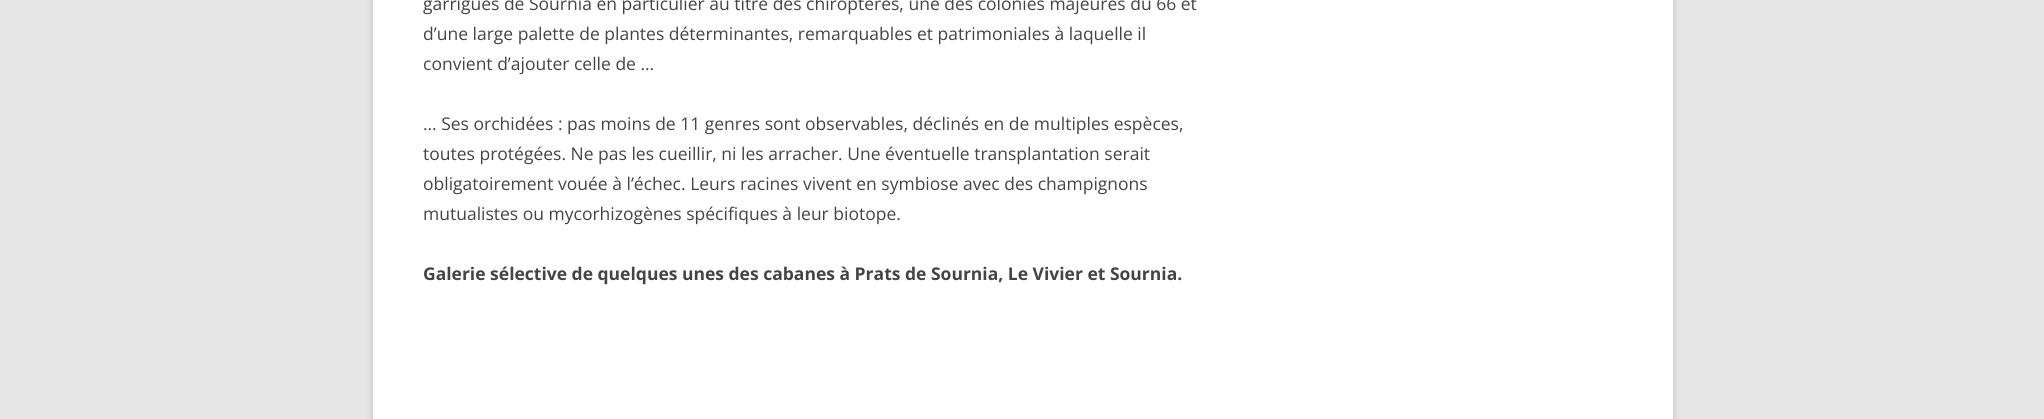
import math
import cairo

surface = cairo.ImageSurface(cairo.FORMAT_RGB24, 2044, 419)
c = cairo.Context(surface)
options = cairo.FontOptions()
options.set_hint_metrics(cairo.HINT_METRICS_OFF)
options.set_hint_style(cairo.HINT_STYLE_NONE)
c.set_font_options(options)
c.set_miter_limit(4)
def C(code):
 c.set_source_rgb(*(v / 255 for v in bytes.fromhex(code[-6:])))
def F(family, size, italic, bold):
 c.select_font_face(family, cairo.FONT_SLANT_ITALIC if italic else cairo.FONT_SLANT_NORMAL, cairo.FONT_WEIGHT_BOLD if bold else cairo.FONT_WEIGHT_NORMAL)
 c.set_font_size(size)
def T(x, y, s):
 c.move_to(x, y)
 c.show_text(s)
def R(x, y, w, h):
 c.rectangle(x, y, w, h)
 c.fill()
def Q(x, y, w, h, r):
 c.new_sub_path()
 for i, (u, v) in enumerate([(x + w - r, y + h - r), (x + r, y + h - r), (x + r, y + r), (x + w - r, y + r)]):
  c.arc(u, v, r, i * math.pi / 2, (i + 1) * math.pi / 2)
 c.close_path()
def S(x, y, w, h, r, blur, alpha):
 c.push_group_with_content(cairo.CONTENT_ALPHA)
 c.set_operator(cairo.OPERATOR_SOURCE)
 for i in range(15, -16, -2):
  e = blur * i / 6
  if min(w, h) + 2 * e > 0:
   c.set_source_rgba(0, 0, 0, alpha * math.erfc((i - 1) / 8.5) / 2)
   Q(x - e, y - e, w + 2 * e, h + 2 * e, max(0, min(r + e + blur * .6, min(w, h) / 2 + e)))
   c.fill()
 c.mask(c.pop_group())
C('e6e6e6')
c.paint()
C('646464')
S(373,-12,1300,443,0,4,.3)
C('ffffff')
R(373,0,1300,419)
F('Open Sans',17.5,0,0)
C('444444')
T(423,10,'garrigues de Sournia en particulier au titre des chiroptères, une des colonies majeures du 66 et')
T(423,40,'d’une large palette de plantes déterminantes, remarquables et patrimoniales à laquelle il')
T(423,70,'convient d’ajouter celle de …')
T(423,130,'… Ses orchidées : pas moins de 11 genres sont observables, déclinés en de multiples espèces,')
T(423,160,'toutes protégées. Ne pas les cueillir, ni les arracher. Une éventuelle transplantation serait')
T(423,190,'obligatoirement vouée à l’échec. Leurs racines vivent en symbiose avec des champignons')
T(423,220,'mutualistes ou mycorhizogènes spécifiques à leur biotope.')
F('Open Sans',17.5,0,1)
T(423,280,'Galerie sélective de quelques unes des cabanes à Prats de Sournia, Le Vivier et Sournia.')
surface.write_to_png('o.png')
